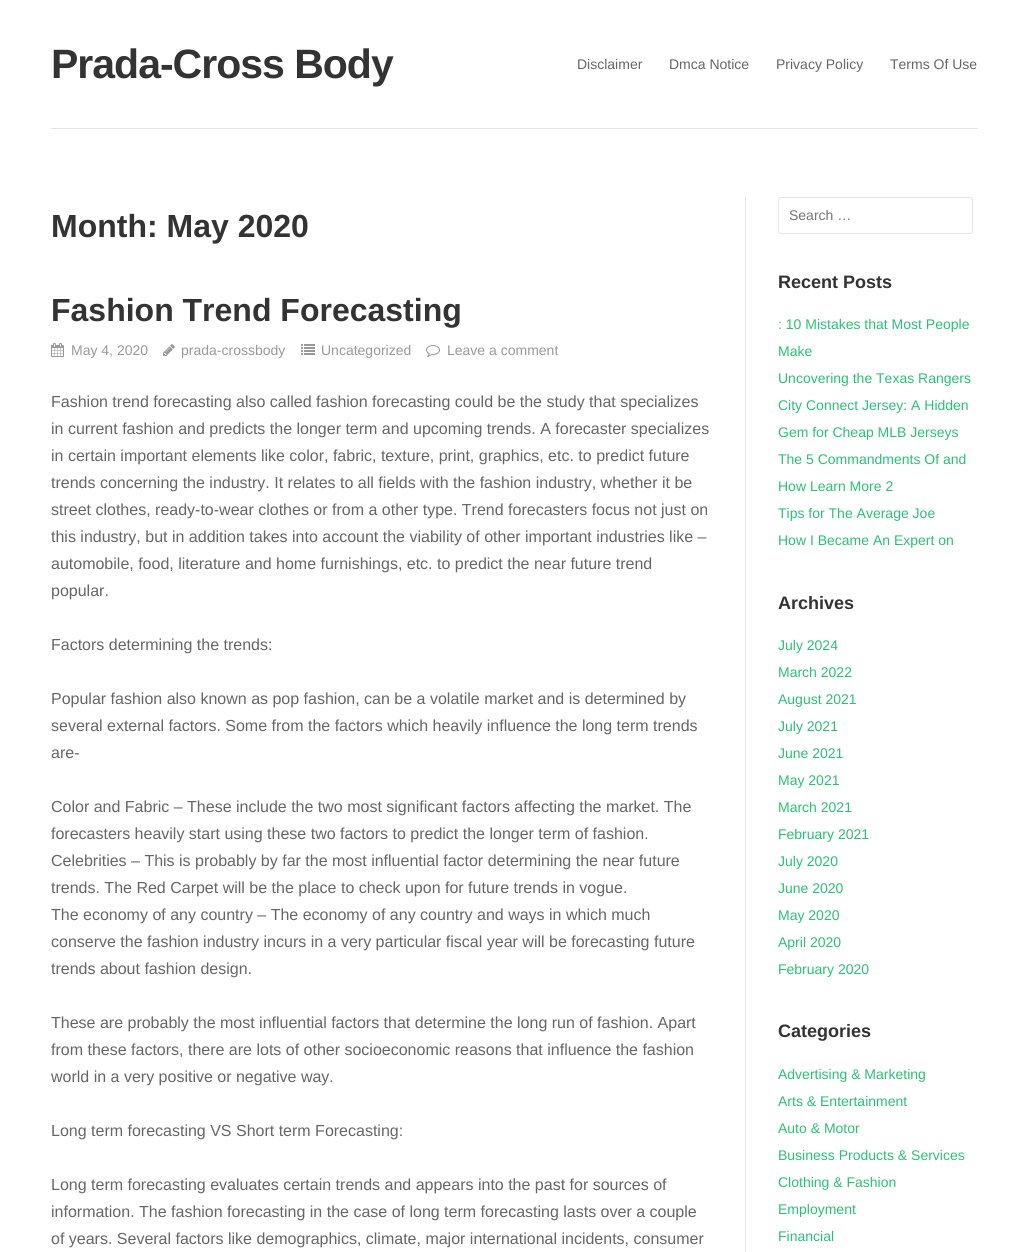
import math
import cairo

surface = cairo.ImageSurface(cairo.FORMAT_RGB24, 1029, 1252)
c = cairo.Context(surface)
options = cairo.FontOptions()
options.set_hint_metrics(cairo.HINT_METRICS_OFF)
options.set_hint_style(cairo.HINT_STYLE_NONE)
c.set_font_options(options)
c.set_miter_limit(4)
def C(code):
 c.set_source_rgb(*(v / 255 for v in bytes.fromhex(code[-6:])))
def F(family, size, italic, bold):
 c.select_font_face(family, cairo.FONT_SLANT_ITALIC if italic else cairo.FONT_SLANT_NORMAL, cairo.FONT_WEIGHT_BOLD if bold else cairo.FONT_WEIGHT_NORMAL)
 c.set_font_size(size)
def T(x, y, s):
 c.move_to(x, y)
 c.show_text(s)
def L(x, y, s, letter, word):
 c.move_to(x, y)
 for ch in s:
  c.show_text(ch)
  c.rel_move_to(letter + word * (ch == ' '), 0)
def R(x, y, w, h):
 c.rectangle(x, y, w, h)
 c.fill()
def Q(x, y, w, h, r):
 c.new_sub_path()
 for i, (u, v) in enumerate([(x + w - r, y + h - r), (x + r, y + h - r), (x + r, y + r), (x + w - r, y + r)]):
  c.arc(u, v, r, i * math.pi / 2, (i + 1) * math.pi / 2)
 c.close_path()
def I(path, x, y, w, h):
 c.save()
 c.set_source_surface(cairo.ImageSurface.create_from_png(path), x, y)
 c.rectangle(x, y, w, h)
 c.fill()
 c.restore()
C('ffffff')
c.paint()
C('e5e5e5')
R(51,128,927,1)
F('Liberation Sans',41,0,1)
C('333333')
L(51,78,'Prada-Cross Body',-1,0)
F('Liberation Sans',14,0,0)
C('666666')
T(577,69,'Disclaimer')
T(669,69,'Dmca Notice')
T(776,69,'Privacy Policy')
T(890,69,'Terms Of Use')
C('e5e5e5')
R(745,197,1,1055)
F('Liberation Sans',32,0,1)
C('333333')
T(51,237,'Month: May 2020')
T(51,321,'Fashion Trend Forecasting')
I('1.png',51,343,13,14)
F('Liberation Sans',14,0,0)
C('999999')
T(71,355,'May 4, 2020')
I('2.png',163,344,12,12)
T(181,355,'prada-crossbody')
I('3.png',301,344,14,11)
T(321,355,'Uncategorized')
I('4.png',426,345,14,12)
T(447,355,'Leave a comment')
F('Liberation Sans',16,0,0)
C('666666')
T(51,407,'Fashion trend forecasting also called fashion forecasting could be the study that specializes')
T(51,434,'in current fashion and predicts the longer term and upcoming trends. A forecaster specializes')
T(51,461,'in certain important elements like color, fabric, texture, print, graphics, etc. to predict future')
T(51,488,'trends concerning the industry. It relates to all fields with the fashion industry, whether it be')
T(51,515,'street clothes, ready-to-wear clothes or from a other type. Trend forecasters focus not just on')
T(51,542,'this industry, but in addition takes into account the viability of other important industries like –')
T(51,569,'automobile, food, literature and home furnishings, etc. to predict the near future trend')
T(51,596,'popular.')
T(51,650,'Factors determining the trends:')
T(51,704,'Popular fashion also known as pop fashion, can be a volatile market and is determined by')
T(51,731,'several external factors. Some from the factors which heavily influence the long term trends')
T(51,758,'are-')
T(51,812,'Color and Fabric – These include the two most significant factors affecting the market. The')
T(51,839,'forecasters heavily start using these two factors to predict the longer term of fashion.')
T(51,866,'Celebrities – This is probably by far the most influential factor determining the near future')
T(51,893,'trends. The Red Carpet will be the place to check upon for future trends in vogue.')
T(51,920,'The economy of any country – The economy of any country and ways in which much')
T(51,947,'conserve the fashion industry incurs in a very particular fiscal year will be forecasting future')
T(51,974,'trends about fashion design.')
T(51,1028,'These are probably the most influential factors that determine the long run of fashion. Apart')
T(51,1055,'from these factors, there are lots of other socioeconomic reasons that influence the fashion')
T(51,1082,'world in a very positive or negative way.')
T(51,1136,'Long term forecasting VS Short term Forecasting:')
T(51,1190,'Long term forecasting evaluates certain trends and appears into the past for sources of')
T(51,1217,'information. The fashion forecasting in the case of long term forecasting lasts over a couple')
T(51,1244,'of years. Several factors like demographics, climate, major international incidents, consumer')
Q(778.5,197.5,194,36,2.5)
C('e5e5e5')
c.set_line_width(1)
c.stroke()
F('Liberation Sans',14,0,0)
C('757575')
T(789,220,'Search …')
F('Liberation Sans',18,0,1)
C('333333')
T(778,288,'Recent Posts')
F('Liberation Sans',14,0,0)
C('2ac176')
T(778,329,': 10 Mistakes that Most People')
T(778,356,'Make')
T(778,383,'Uncovering the Texas Rangers')
T(778,410,'City Connect Jersey: A Hidden')
T(778,437,'Gem for Cheap MLB Jerseys')
T(778,464,'The 5 Commandments Of and')
T(778,491,'How Learn More 2')
T(778,518,'Tips for The Average Joe')
T(778,545,'How I Became An Expert on')
F('Liberation Sans',18,0,1)
C('333333')
T(778,609,'Archives')
F('Liberation Sans',14,0,0)
C('2ac176')
T(778,650,'July 2024')
T(778,677,'March 2022')
T(778,704,'August 2021')
T(778,731,'July 2021')
T(778,758,'June 2021')
T(778,785,'May 2021')
T(778,812,'March 2021')
T(778,839,'February 2021')
T(778,866,'July 2020')
T(778,893,'June 2020')
T(778,920,'May 2020')
T(778,947,'April 2020')
T(778,974,'February 2020')
F('Liberation Sans',18,0,1)
C('333333')
T(778,1037,'Categories')
F('Liberation Sans',14,0,0)
C('2ac176')
T(778,1079,'Advertising & Marketing')
T(778,1106,'Arts & Entertainment')
T(778,1133,'Auto & Motor')
T(778,1160,'Business Products & Services')
T(778,1187,'Clothing & Fashion')
T(778,1214,'Employment')
T(778,1241,'Financial')
surface.write_to_png('o.png')
